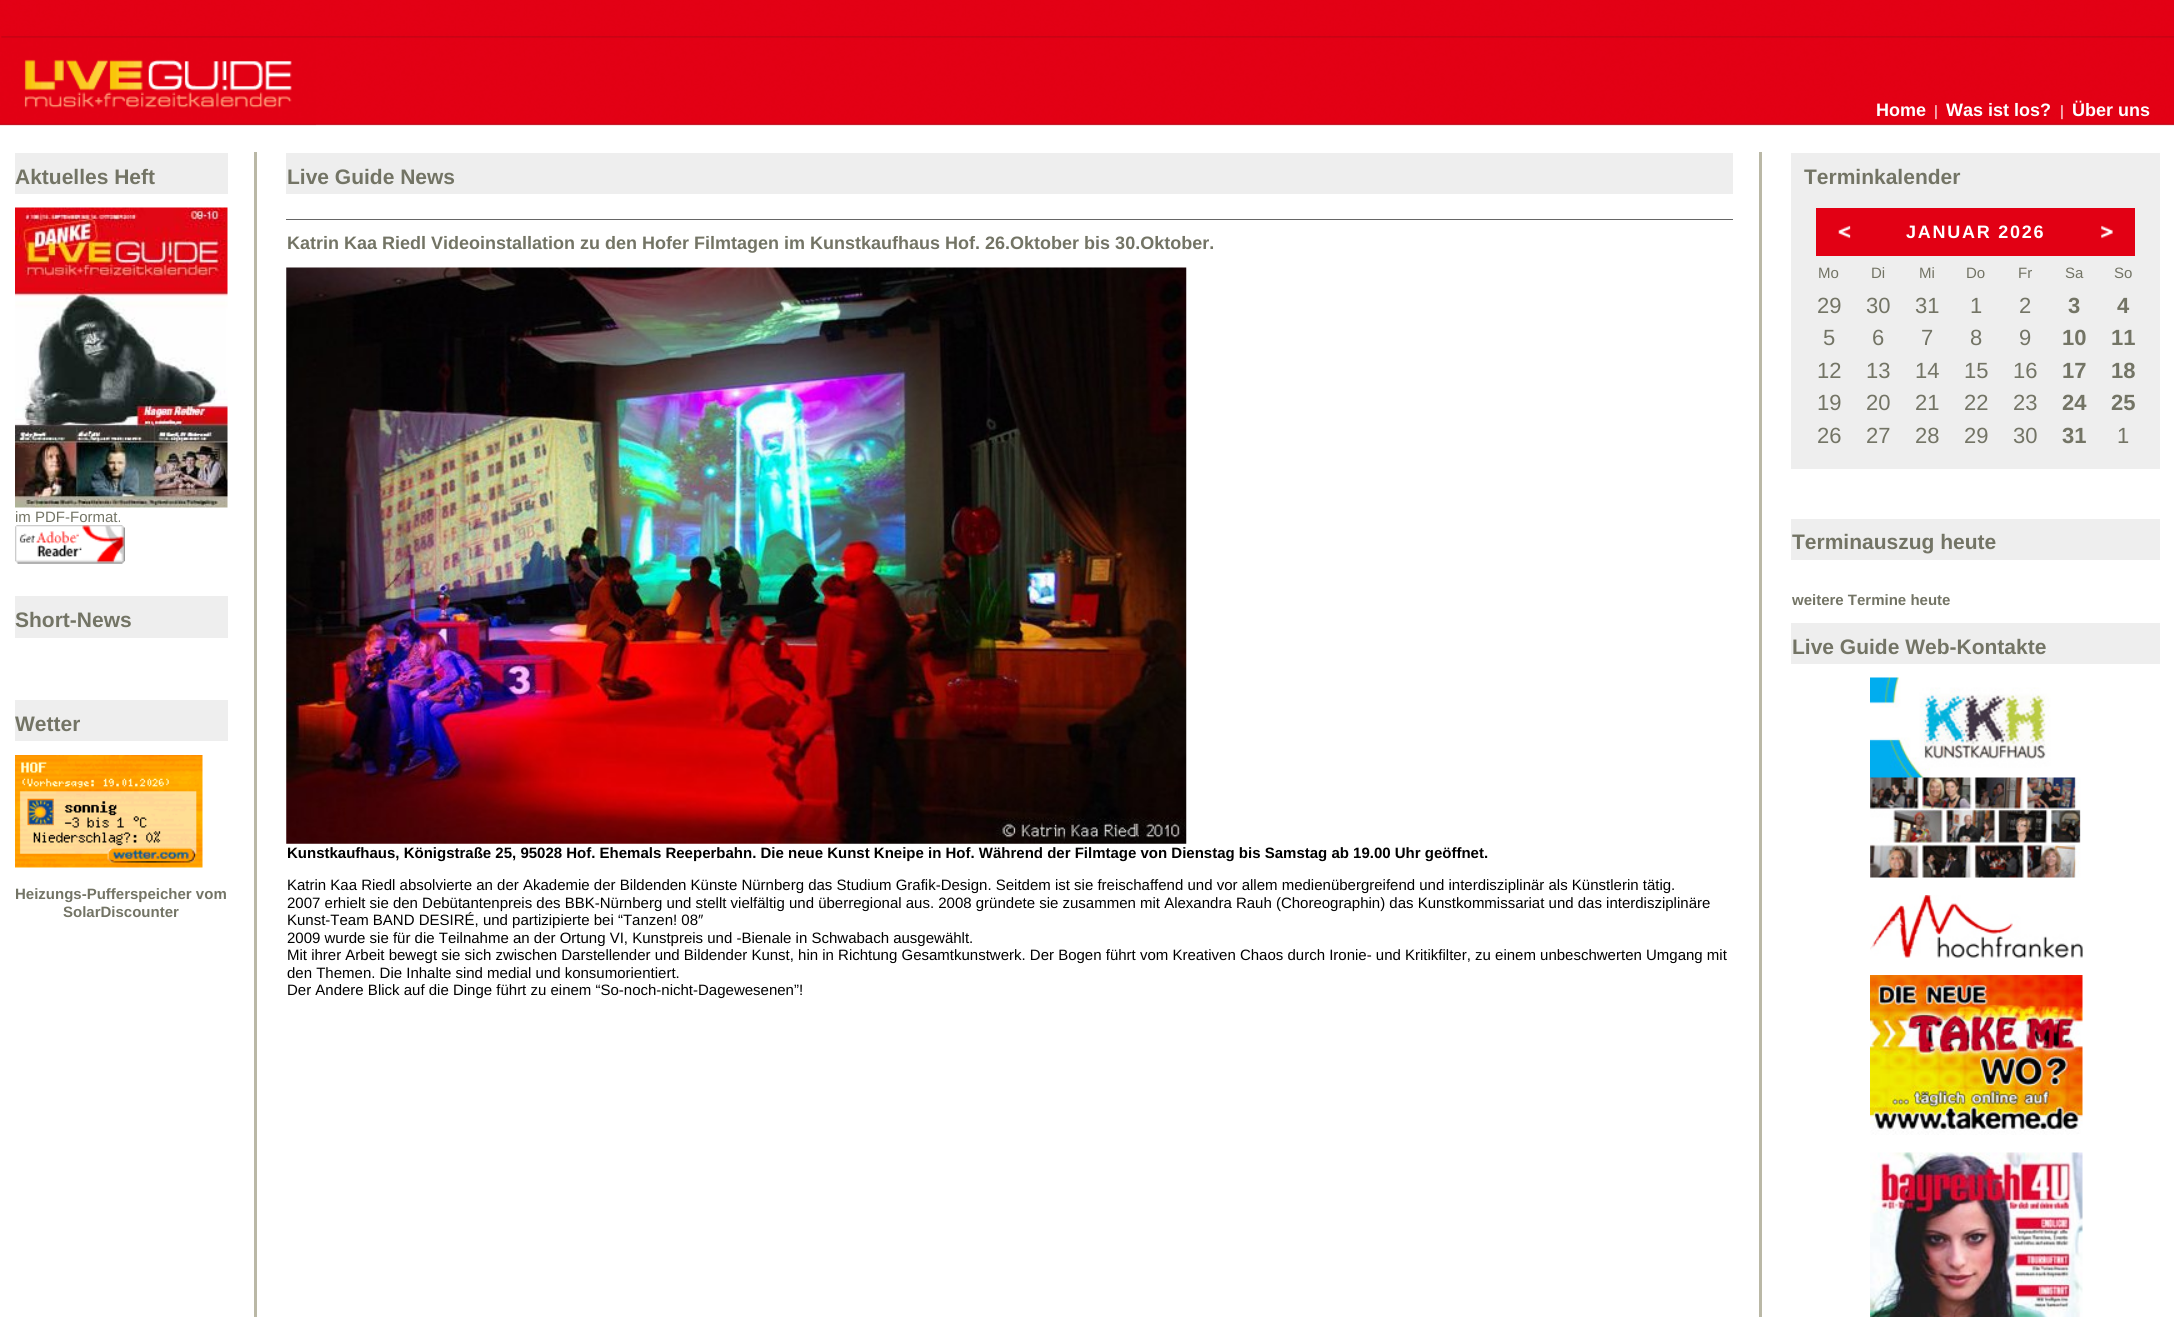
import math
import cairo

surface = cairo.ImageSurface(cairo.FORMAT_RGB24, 2174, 1317)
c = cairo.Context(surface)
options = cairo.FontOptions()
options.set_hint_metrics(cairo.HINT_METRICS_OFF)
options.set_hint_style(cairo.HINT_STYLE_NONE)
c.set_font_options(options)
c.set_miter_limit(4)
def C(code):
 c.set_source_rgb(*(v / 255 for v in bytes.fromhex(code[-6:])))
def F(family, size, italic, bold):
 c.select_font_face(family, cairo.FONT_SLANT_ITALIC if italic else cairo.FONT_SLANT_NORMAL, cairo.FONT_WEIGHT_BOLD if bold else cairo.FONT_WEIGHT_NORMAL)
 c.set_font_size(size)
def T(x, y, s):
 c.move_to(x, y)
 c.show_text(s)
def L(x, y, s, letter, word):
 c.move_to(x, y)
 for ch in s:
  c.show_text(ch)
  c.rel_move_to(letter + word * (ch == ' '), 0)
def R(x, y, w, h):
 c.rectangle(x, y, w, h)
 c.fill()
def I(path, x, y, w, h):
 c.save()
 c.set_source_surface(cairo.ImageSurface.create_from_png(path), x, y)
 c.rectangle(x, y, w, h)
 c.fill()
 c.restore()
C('ffffff')
c.paint()
I('1.png',0,0,2174,126)
I('2.png',0,36,316,90)
F('Liberation Sans',18,0,1)
C('ffffff')
T(1876,116,'Home')
F('Liberation Sans',15,0,0)
T(1934,116,'|')
F('Liberation Sans',18,0,1)
T(1946,116,'Was ist los?')
F('Liberation Sans',15,0,0)
T(2060,116,'|')
F('Liberation Sans',18,0,1)
T(2072,116,'Über uns')
C('eeeeee')
R(15,153,213,41)
F('Liberation Sans',21,0,1)
C('737465')
T(15,184,'Aktuelles Heft')
I('3.png',15,207,213,301)
F('Liberation Sans',15,0,0)
T(15,522,'im PDF-Format.')
I('4.png',15,525,110,39)
C('eeeeee')
R(15,596,213,42)
F('Liberation Sans',21,0,1)
C('737465')
T(15,627,'Short-News')
C('eeeeee')
R(15,700,213,41)
C('737465')
T(15,731,'Wetter')
I('5.png',15,755,188,113)
F('Liberation Sans',15,0,1)
T(15,899,'Heizungs-Pufferspeicher vom')
T(63,917,'SolarDiscounter')
C('bab8a6')
R(254,152,3,1165)
C('eeeeee')
R(286,153,1447,41)
F('Liberation Sans',21,0,1)
C('737465')
T(287,184,'Live Guide News')
C('666666')
R(286,219,1447,1)
F('Liberation Sans',18,0,1)
C('737465')
T(287,249,'Katrin Kaa Riedl Videoinstallation zu den Hofer Filmtagen im Kunstkaufhaus Hof. 26.Oktober bis 30.Oktober.')
I('6.png',286,267,901,577)
F('Liberation Sans',15,0,1)
C('000000')
T(287,858,'Kunstkaufhaus, Königstraße 25, 95028 Hof. Ehemals Reeperbahn. Die neue Kunst Kneipe in Hof. Während der Filmtage von Dienstag bis Samstag ab 19.00 Uhr geöffnet.')
F('Liberation Sans',15,0,0)
T(287,890,'Katrin Kaa Riedl absolvierte an der Akademie der Bildenden Künste Nürnberg das Studium Grafik-Design. Seitdem ist sie freischaffend und vor allem medienübergreifend und interdisziplinär als Künstlerin tätig.')
T(287,908,'2007 erhielt sie den Debütantenpreis des BBK-Nürnberg und stellt vielfältig und überregional aus. 2008 gründete sie zusammen mit Alexandra Rauh (Choreographin) das Kunstkommissariat und das interdisziplinäre')
T(287,925,'Kunst-Team BAND DESIRÉ, und partizipierte bei “Tanzen! 08″')
T(287,943,'2009 wurde sie für die Teilnahme an der Ortung VI, Kunstpreis und -Bienale in Schwabach ausgewählt.')
T(287,960,'Mit ihrer Arbeit bewegt sie sich zwischen Darstellender und Bildender Kunst, hin in Richtung Gesamtkunstwerk. Der Bogen führt vom Kreativen Chaos durch Ironie- und Kritikfilter, zu einem unbeschwerten Umgang mit')
T(287,978,'den Themen. Die Inhalte sind medial und konsumorientiert.')
T(287,995,'Der Andere Blick auf die Dinge führt zu einem “So-noch-nicht-Dagewesenen”!')
C('bab8a6')
R(1759,152,3,1165)
C('eeeeee')
R(1791,153,369,316)
F('Liberation Sans',21,0,1)
C('737465')
T(1804,184,'Terminkalender')
C('e20014')
R(1816,208,319,48)
I('7.png',1838,225,13,14)
F('Liberation Sans',18,0,1)
C('ffffff')
L(1906,238,'JANUAR 2026',1.75,0)
I('8.png',2101,225,12,14)
F('Liberation Sans',15,0,0)
C('737465')
T(1818,278,'Mo')
T(1871,278,'Di')
T(1919,278,'Mi')
T(1966,278,'Do')
T(2018,278,'Fr')
T(2065,278,'Sa')
T(2114,278,'So')
F('Liberation Sans',22,0,0)
T(1817,313,'29')
T(1866,313,'30')
T(1915,313,'31')
T(1970,313,'1')
T(2019,313,'2')
F('Liberation Sans',22,0,1)
T(2068,313,'3')
T(2117,313,'4')
F('Liberation Sans',22,0,0)
T(1823,345,'5')
T(1872,345,'6')
T(1921,345,'7')
T(1970,345,'8')
T(2019,345,'9')
F('Liberation Sans',22,0,1)
T(2062,345,'10')
T(2111,345,'11')
F('Liberation Sans',22,0,0)
T(1817,378,'12')
T(1866,378,'13')
T(1915,378,'14')
T(1964,378,'15')
T(2013,378,'16')
F('Liberation Sans',22,0,1)
T(2062,378,'17')
T(2111,378,'18')
F('Liberation Sans',22,0,0)
T(1817,410,'19')
T(1866,410,'20')
T(1915,410,'21')
T(1964,410,'22')
T(2013,410,'23')
F('Liberation Sans',22,0,1)
T(2062,410,'24')
T(2111,410,'25')
F('Liberation Sans',22,0,0)
T(1817,443,'26')
T(1866,443,'27')
T(1915,443,'28')
T(1964,443,'29')
T(2013,443,'30')
F('Liberation Sans',22,0,1)
T(2062,443,'31')
F('Liberation Sans',22,0,0)
T(2117,443,'1')
C('eeeeee')
R(1791,519,369,41)
F('Liberation Sans',21,0,1)
C('737465')
T(1792,549,'Terminauszug heute')
F('Liberation Sans',15,0,1)
T(1792,605,'weitere Termine heute')
C('eeeeee')
R(1791,623,369,41)
F('Liberation Sans',21,0,1)
C('737465')
T(1792,654,'Live Guide Web-Kontakte')
I('9.png',1870,677,211,201)
I('10.png',1870,895,213,63)
I('11.png',1870,975,213,160)
I('12.png',1870,1152,213,165)
surface.write_to_png('o.png')
